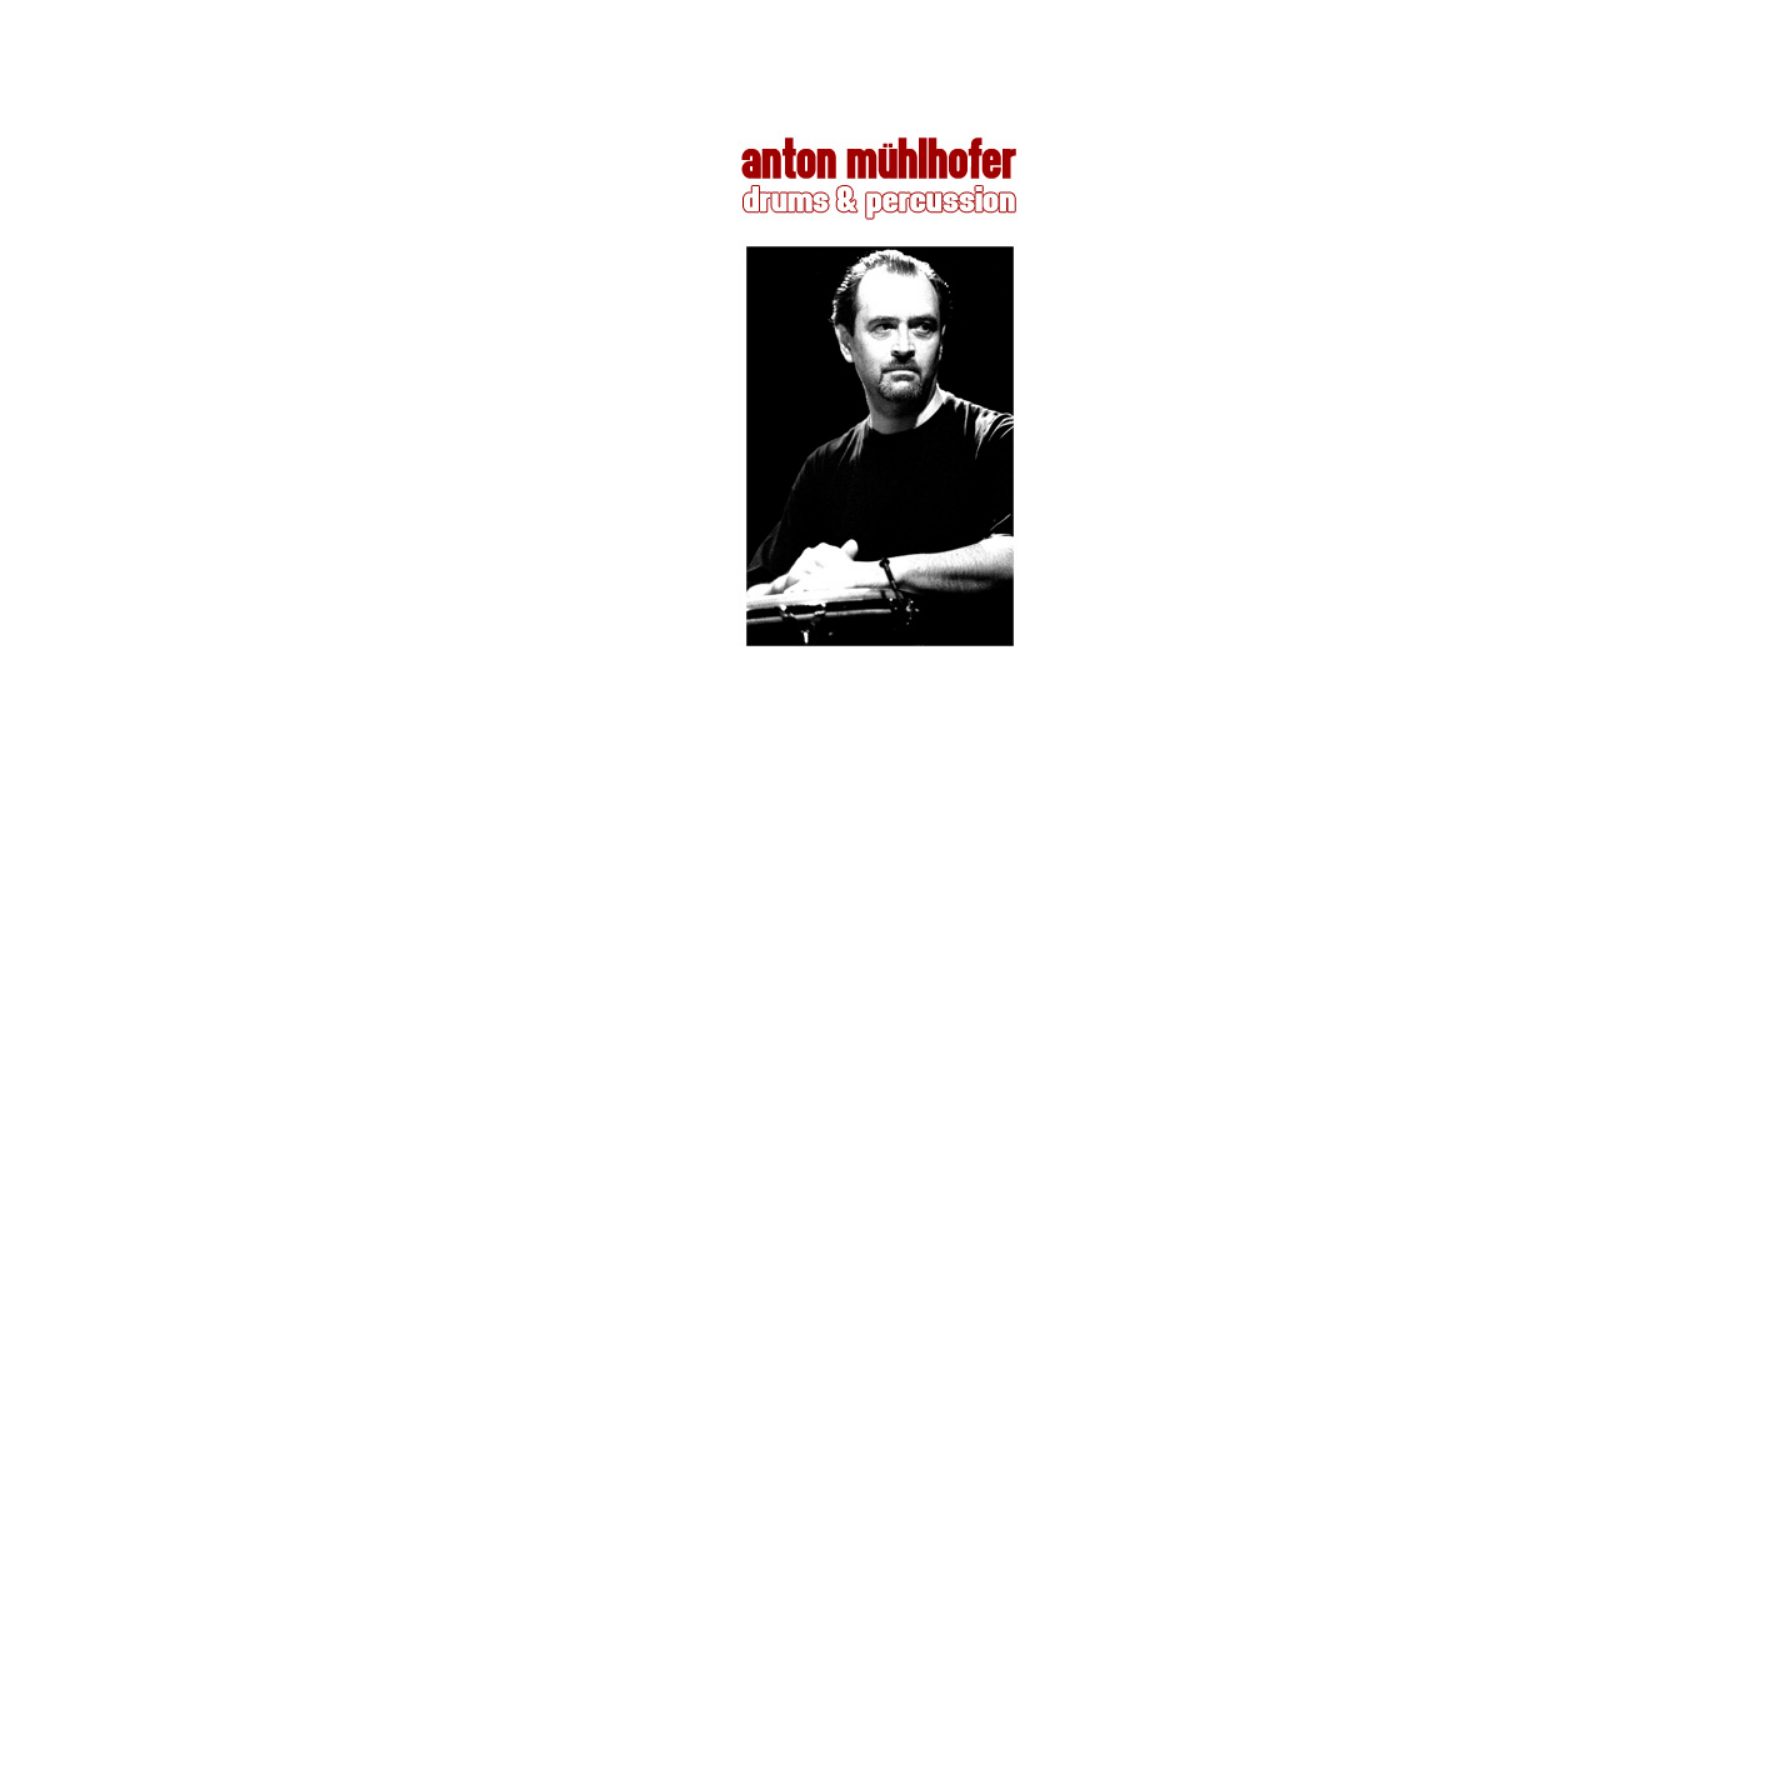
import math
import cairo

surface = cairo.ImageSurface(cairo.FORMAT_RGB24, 1774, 1789)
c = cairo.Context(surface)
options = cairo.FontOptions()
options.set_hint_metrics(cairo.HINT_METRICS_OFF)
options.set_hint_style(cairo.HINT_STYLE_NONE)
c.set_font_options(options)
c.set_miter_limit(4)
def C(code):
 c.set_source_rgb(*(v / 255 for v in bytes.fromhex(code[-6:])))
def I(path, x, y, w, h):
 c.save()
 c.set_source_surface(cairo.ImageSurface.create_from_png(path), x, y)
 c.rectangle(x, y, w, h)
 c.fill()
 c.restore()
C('ffffff')
c.paint()
I('1.png',737,130,281,517)
surface.write_to_png('o.png')
